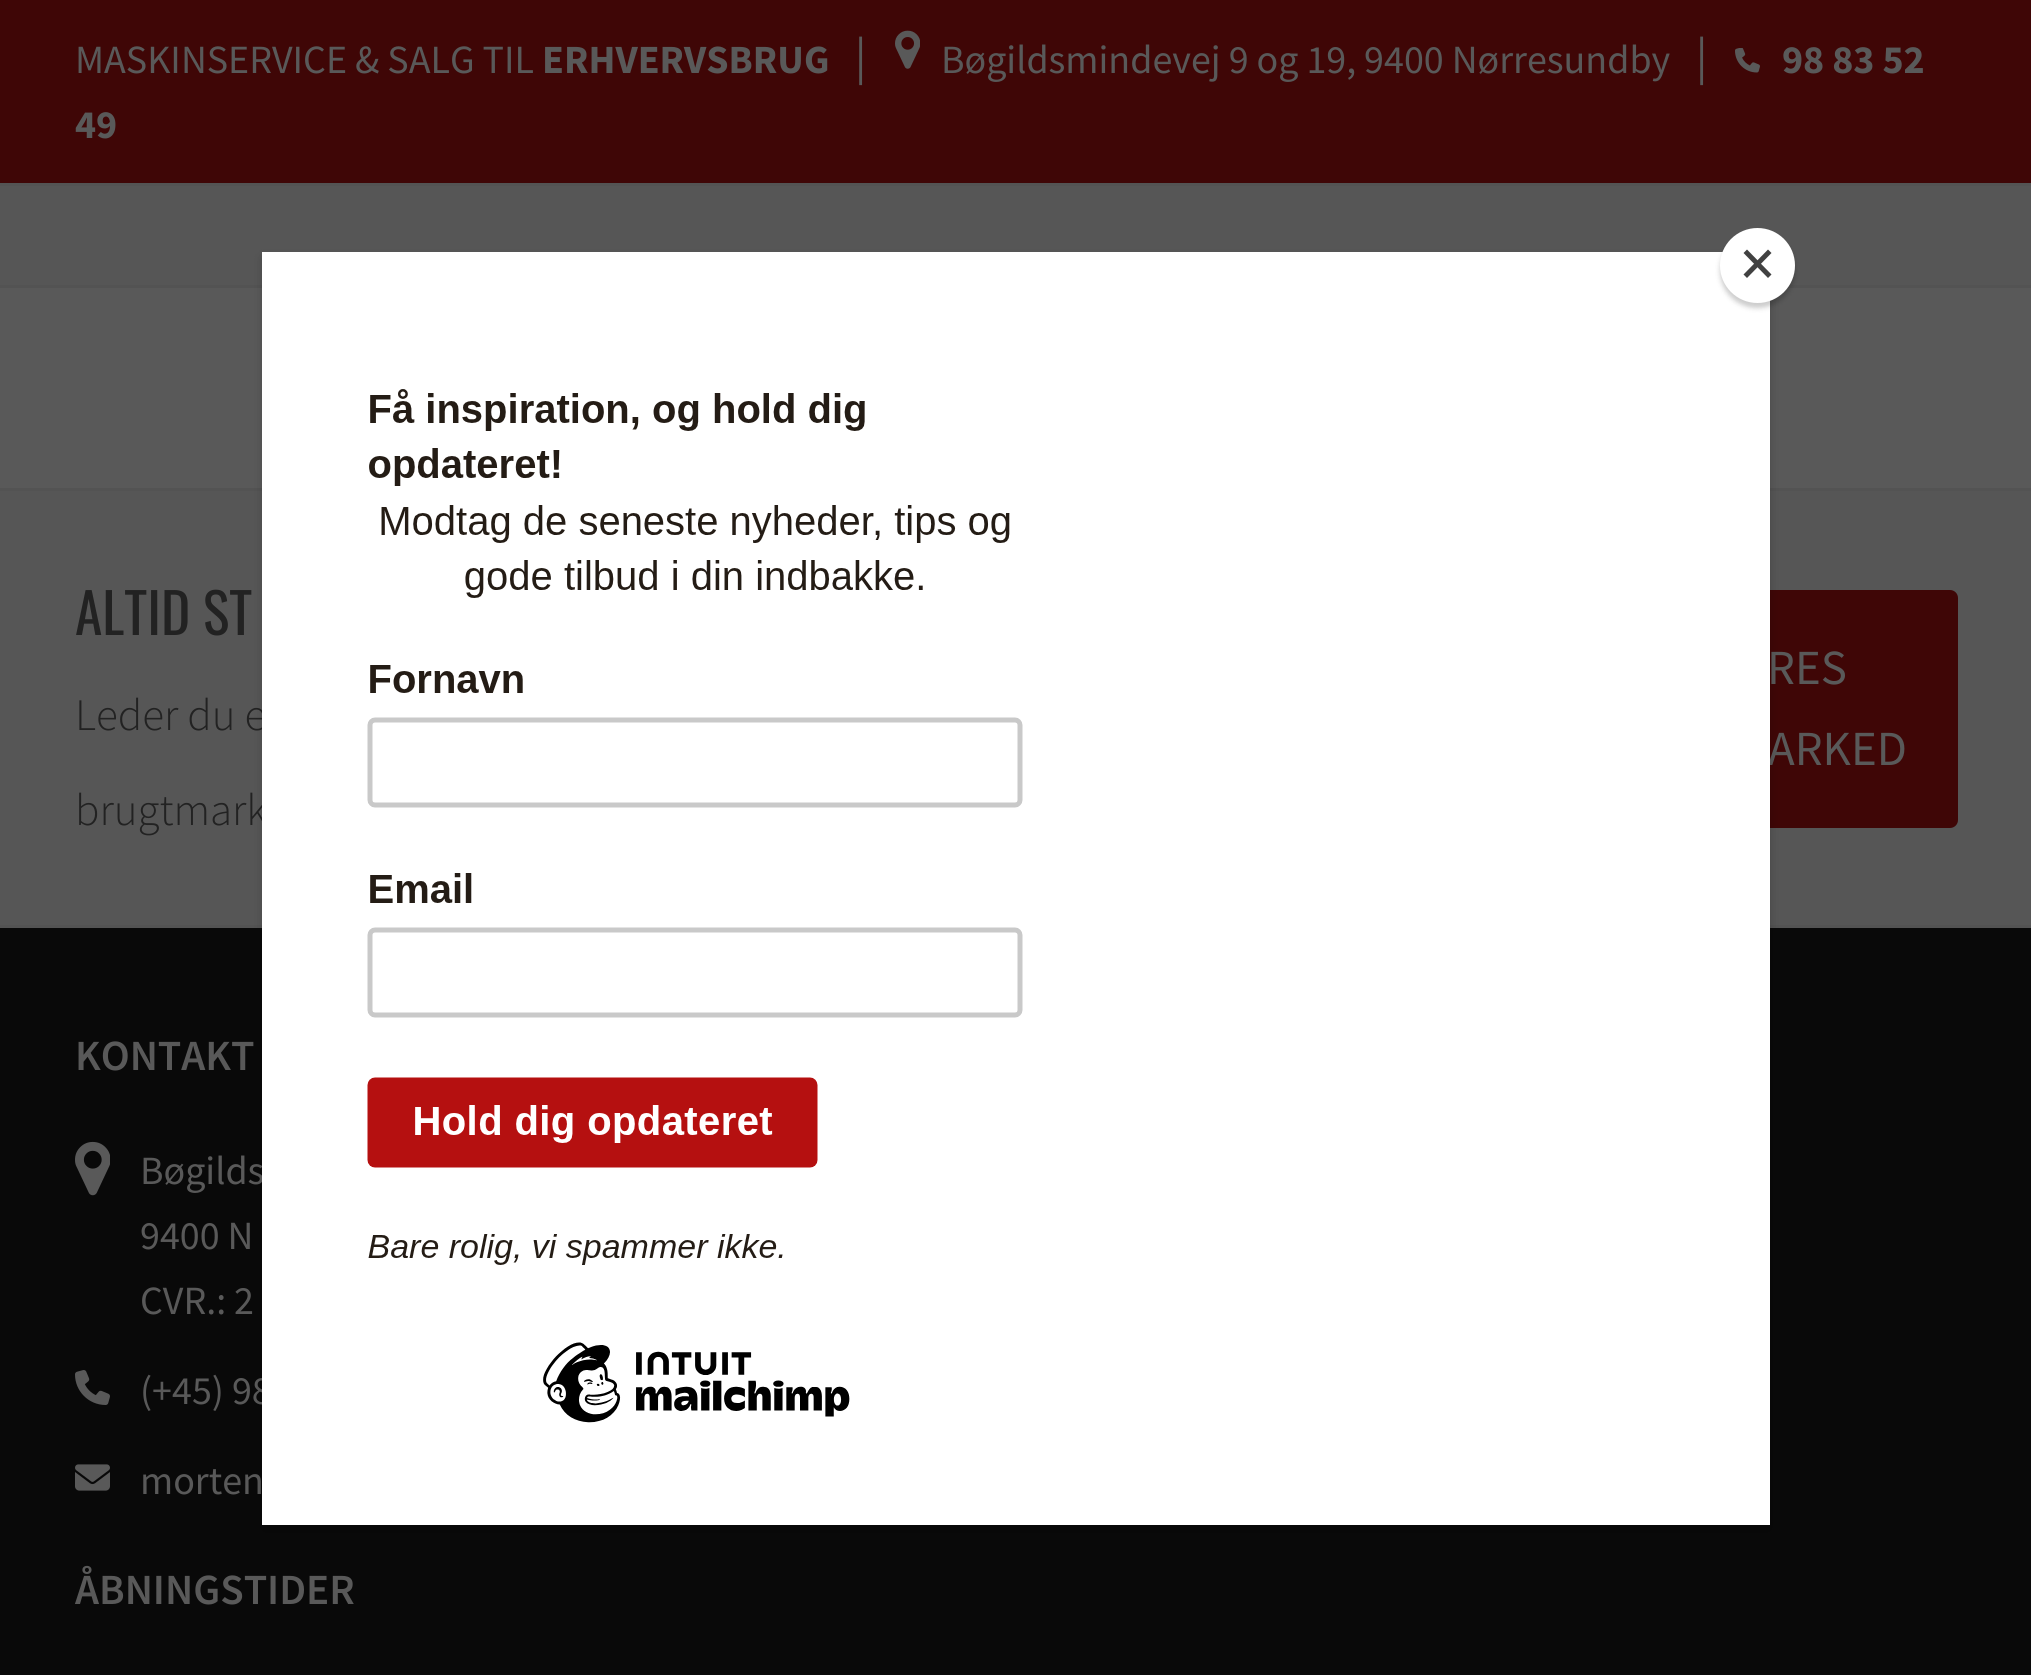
import math
import cairo

surface = cairo.ImageSurface(cairo.FORMAT_RGB24, 2031, 1675)
c = cairo.Context(surface)
options = cairo.FontOptions()
options.set_hint_metrics(cairo.HINT_METRICS_OFF)
options.set_hint_style(cairo.HINT_STYLE_NONE)
c.set_font_options(options)
c.set_miter_limit(4)
def C(code):
 c.set_source_rgb(*(v / 255 for v in bytes.fromhex(code[-6:])))
def F(family, size, italic, bold):
 c.select_font_face(family, cairo.FONT_SLANT_ITALIC if italic else cairo.FONT_SLANT_NORMAL, cairo.FONT_WEIGHT_BOLD if bold else cairo.FONT_WEIGHT_NORMAL)
 c.set_font_size(size)
def T(x, y, s):
 c.move_to(x, y)
 c.show_text(s)
def R(x, y, w, h):
 c.rectangle(x, y, w, h)
 c.fill()
def Q(x, y, w, h, r):
 c.new_sub_path()
 for i, (u, v) in enumerate([(x + w - r, y + h - r), (x + r, y + h - r), (x + r, y + r), (x + w - r, y + r)]):
  c.arc(u, v, r, i * math.pi / 2, (i + 1) * math.pi / 2)
 c.close_path()
def S(x, y, w, h, r, blur, alpha):
 c.push_group_with_content(cairo.CONTENT_ALPHA)
 c.set_operator(cairo.OPERATOR_SOURCE)
 for i in range(15, -16, -2):
  e = blur * i / 6
  if min(w, h) + 2 * e > 0:
   c.set_source_rgba(0, 0, 0, alpha * math.erfc((i - 1) / 8.5) / 2)
   Q(x - e, y - e, w + 2 * e, h + 2 * e, max(0, min(r + e + blur * .6, min(w, h) / 2 + e)))
   c.fill()
 c.mask(c.pop_group())
def I(path, x, y, w, h):
 c.save()
 c.set_source_surface(cairo.ImageSurface.create_from_png(path), x, y)
 c.rectangle(x, y, w, h)
 c.fill()
 c.restore()
C('595959')
c.paint()
C('3f0606')
R(0,0,2031,183)
F('Source Sans Pro',40,0,0)
C('595959')
T(75,73,'MASKINSERVICE & SALG TIL')
F('Source Sans Pro',40,0,1)
T(542,73,'ERHVERVSBRUG')
F('Liberation Sans',40,0,0)
T(850,73,'│')
I('1.png',895,30,25,39)
F('Source Sans Pro',40,0,0)
T(941,73,'Bøgildsmindevej 9 og 19, 9400 Nørresundby')
F('Liberation Sans',40,0,0)
T(1691,73,'│')
I('2.png',1735,48,25,25)
F('Source Sans Pro',40,0,1)
T(1782,73,'98 83 52')
T(75,138,'49')
C('565656')
R(0,186,2031,99)
C('535353')
R(0,183,2031,3)
R(0,285,2031,3)
C('565656')
R(0,491,2031,434)
C('535353')
R(0,488,2031,3)
R(0,925,2031,3)
F('Oswald',55.5,0,0)
C('222222')
T(75,635,'ALTID ST')
F('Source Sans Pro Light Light',45,0,0)
T(75,730,'Leder du e')
T(75,825,'brugtmark')
C('3f0606')
Q(1538,590,420,238,8)
c.fill()
F('Source Sans Pro',49,0,0)
C('595959')
T(1767,684,'RES')
T(1768,765,'ARKED')
C('090909')
R(0,928,2031,747)
F('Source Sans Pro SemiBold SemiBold',43,0,0)
C('595959')
T(75,1070,'KONTAKT')
I('3.png',75,1141,35,55)
F('Source Sans Pro',40,0,0)
T(140,1184,'Bøgilds')
T(140,1249,'9400 N')
T(140,1314,'CVR.: 2')
I('4.png',75,1370,35,35)
T(140,1404,'(+45) 98')
I('5.png',75,1464,35,27)
T(140,1494,'morten')
F('Source Sans Pro SemiBold SemiBold',43,0,0)
T(75,1604,'ÅBNINGSTIDER')
C('000000')
S(263,258,1507,1272,0,5,.2)
I('6.png',262,252,1508,1273)
S(1720,233,75,75,37.5,2.5,.2)
C('ffffff')
c.arc(1757.5,265.5,37.5,0,2 * math.pi)
c.fill()
C('414141')
c.new_path()
c.move_to(1768,249.5)
c.line_to(1771.5,253)
c.line_to(1747,278)
c.line_to(1743.5,274.5)
c.close_path()
c.fill()
c.new_path()
c.move_to(1743.5,253)
c.line_to(1747,249.5)
c.line_to(1771.5,274.5)
c.line_to(1768,278)
c.close_path()
c.fill()
surface.write_to_png('o.png')
